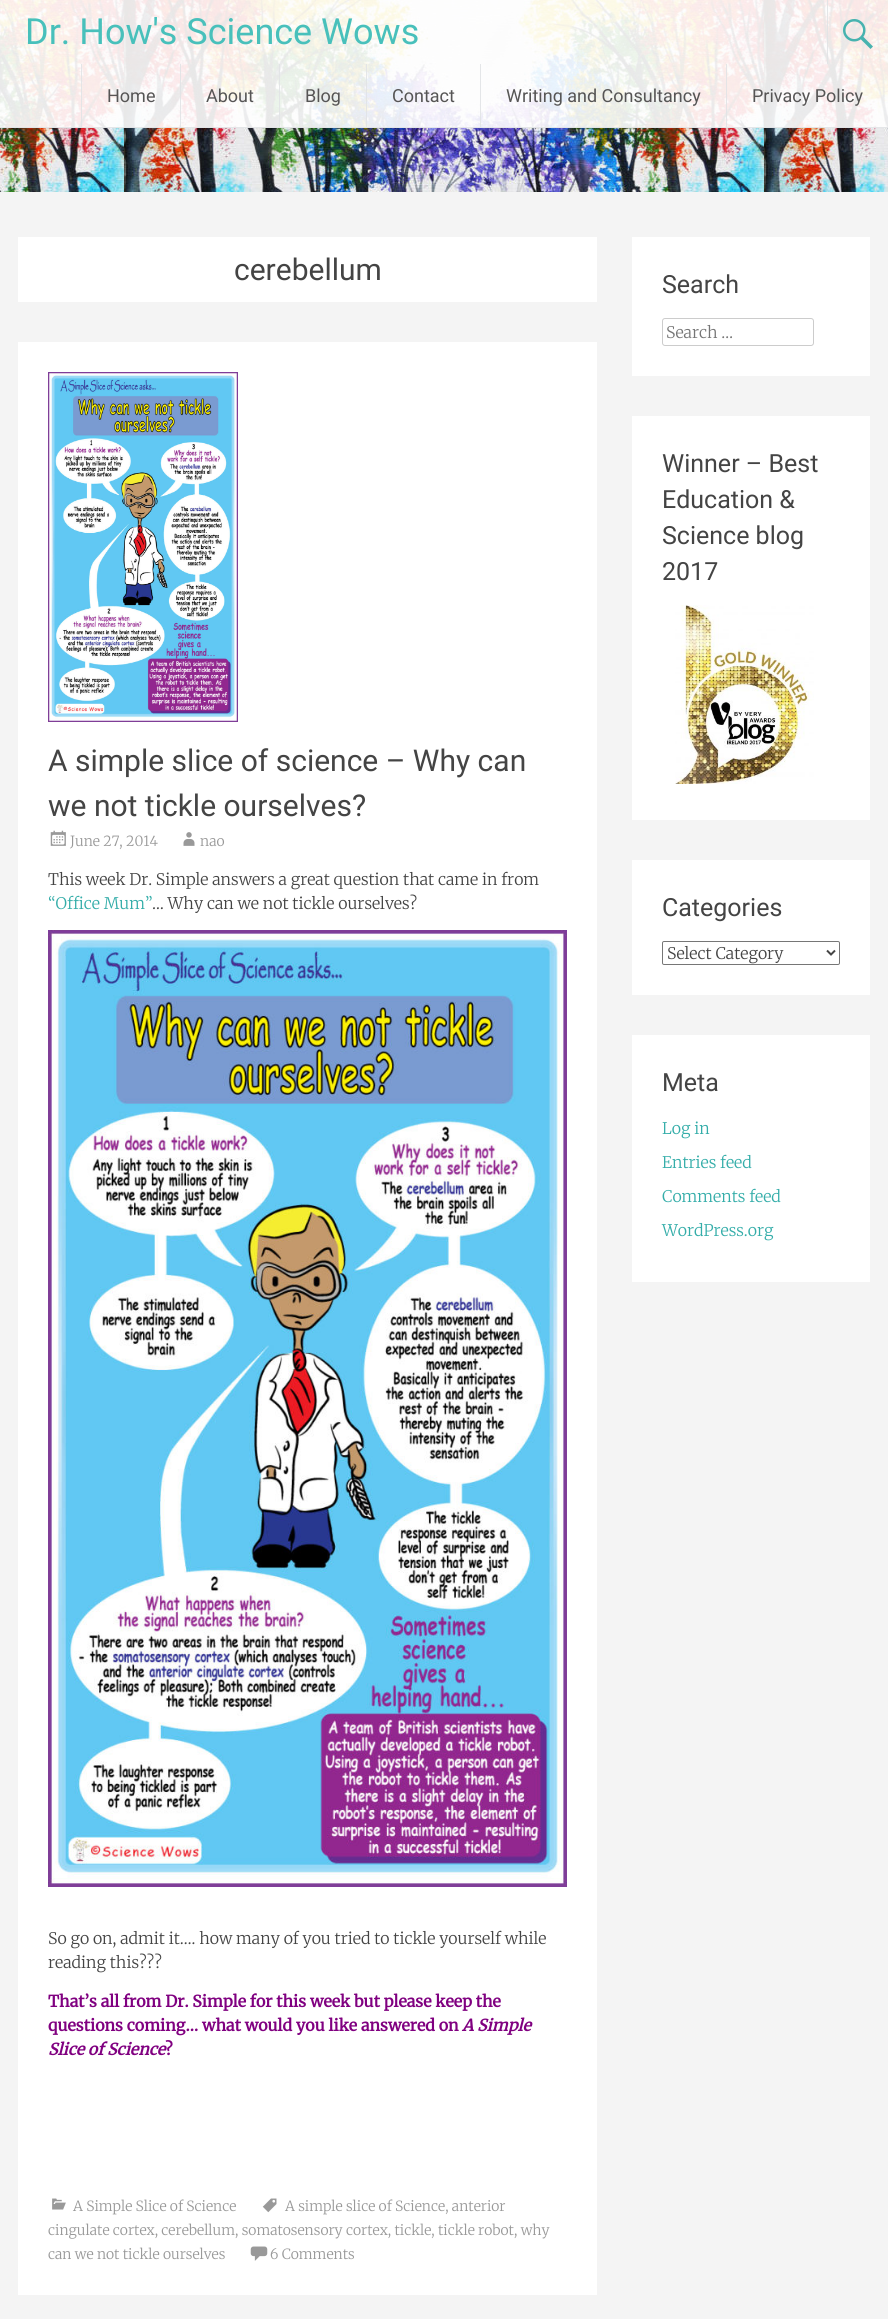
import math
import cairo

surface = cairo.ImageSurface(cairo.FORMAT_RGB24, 888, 2319)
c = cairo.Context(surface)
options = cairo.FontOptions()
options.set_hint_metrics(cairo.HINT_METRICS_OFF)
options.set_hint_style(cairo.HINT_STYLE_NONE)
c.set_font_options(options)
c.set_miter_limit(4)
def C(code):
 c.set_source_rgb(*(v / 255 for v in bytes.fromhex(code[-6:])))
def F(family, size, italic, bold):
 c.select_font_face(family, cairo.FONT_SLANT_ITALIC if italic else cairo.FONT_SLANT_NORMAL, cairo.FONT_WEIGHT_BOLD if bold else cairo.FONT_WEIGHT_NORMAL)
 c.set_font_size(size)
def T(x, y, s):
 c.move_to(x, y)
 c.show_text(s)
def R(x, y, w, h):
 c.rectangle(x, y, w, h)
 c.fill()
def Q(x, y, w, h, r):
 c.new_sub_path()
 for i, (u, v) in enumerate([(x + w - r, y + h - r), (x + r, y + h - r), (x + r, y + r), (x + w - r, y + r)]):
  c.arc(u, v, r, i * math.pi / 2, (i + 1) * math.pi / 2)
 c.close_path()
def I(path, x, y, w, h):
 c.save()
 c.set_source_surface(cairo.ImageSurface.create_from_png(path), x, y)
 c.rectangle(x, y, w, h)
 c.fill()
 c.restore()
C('ffffff')
c.paint()
I('1.png',0,0,888,192)
c.set_source_rgba(1,1,1,0.9)
R(0,0,888,128)
c.set_source_rgba(0.882,0.894,0.902,0.9)
R(0,127,888,1)
F('Roboto',36,0,0)
C('48c0bb')
T(25,44,'Dr. How\'s Science Wows')
c.set_source_rgba(0.882,0.894,0.902,0.9)
R(827,0,1,64)
I('2.png',843,19,30,30)
R(81,64,1,63)
F('Roboto',18,0,0)
C('565555')
T(107,102,'Home')
c.set_source_rgba(0.882,0.894,0.902,0.9)
R(180,64,1,63)
C('565555')
T(206,102,'About')
c.set_source_rgba(0.882,0.894,0.902,0.9)
R(279,64,1,63)
C('565555')
T(305,102,'Blog')
c.set_source_rgba(0.882,0.894,0.902,0.9)
R(366,64,1,63)
C('565555')
T(392,102,'Contact')
c.set_source_rgba(0.882,0.894,0.902,0.9)
R(480,64,1,63)
C('565555')
T(506,102,'Writing and Consultancy')
c.set_source_rgba(0.882,0.894,0.902,0.9)
R(726,64,1,63)
C('565555')
T(752,102,'Privacy Policy')
C('f4f4f4')
R(0,192,888,2127)
C('ffffff')
R(18,237,579,65)
F('Roboto',30,0,0)
C('444444')
T(234,280,'cerebellum')
C('ffffff')
R(18,342,579,1953)
I('3.png',48,372,190,350)
C('444444')
T(48,771,'A simple slice of science – Why can')
T(48,816,'we not tickle ourselves?')
I('4.png',50,830,16,16)
F('Merriweather Light',14,0,0)
C('999999')
T(70,846,'June 27, 2014')
I('5.png',183,832,12,14)
T(200,846,'nao')
F('Merriweather Light',16,0,0)
C('444444')
T(48,885,'This week Dr. Simple answers a great question that came in from')
C('34ada9')
T(48,909,'“Office Mum”')
C('444444')
T(152,909,'… Why can we not tickle ourselves?')
I('6.png',48,930,519,957)
T(48,1944,'So go on, admit it…. how many of you tried to tickle yourself while')
T(48,1968,'reading this???')
F('Merriweather',16,0,1)
C('800080')
T(48,2007,'That’s all from Dr. Simple for this week but please keep the')
T(48,2031,'questions coming… what would you like answered on')
F('Merriweather',16,1,1)
T(462,2031,'A Simple')
T(48,2055,'Slice of Science')
F('Merriweather',16,0,1)
T(165,2055,'?')
I('7.png',262,2198,15,15)
F('Merriweather Light',14,0,0)
C('999999')
T(285,2211,'A simple slice of Science, anterior')
T(48,2235,'cingulate cortex, cerebellum, somatosensory cortex, tickle, tickle robot, why')
T(48,2259,'can we not tickle ourselves')
I('8.png',52,2198,14,12)
T(73,2211,'A Simple Slice of Science')
I('9.png',250,2246,18,15)
T(270,2259,'6 Comments')
C('ffffff')
R(632,237,238,139)
F('Roboto',25,0,0)
C('444444')
T(662,293,'Search')
Q(662.5,318.5,151,27,2.5)
C('cccccc')
c.set_line_width(1)
c.stroke()
F('Merriweather Light',16,0,0)
C('757575')
T(666,338,'Search …')
C('ffffff')
R(632,416,238,404)
F('Roboto',25,0,0)
C('444444')
T(662,472,'Winner – Best')
T(662,508,'Education &')
T(662,544,'Science blog')
T(662,580,'2017')
I('10.png',675,605,139,179)
C('ffffff')
R(632,860,238,135)
C('444444')
T(662,916,'Categories')
Q(662.5,941.5,177,23,1.5)
C('767676')
c.stroke()
c.new_path()
c.move_to(827,950.5)
c.line_to(831,954.5)
c.line_to(835,950.5)
C('444444')
c.set_line_width(2)
c.stroke()
F('Merriweather Light',16,0,0)
T(667,959,'Select Category')
C('ffffff')
R(632,1035,238,247)
F('Roboto',25,0,0)
C('444444')
T(662,1091,'Meta')
F('Merriweather Light',16,0,0)
C('34ada9')
T(662,1134,'Log in')
T(662,1168,'Entries feed')
T(662,1202,'Comments feed')
T(662,1236,'WordPress.org')
surface.write_to_png('o.png')
